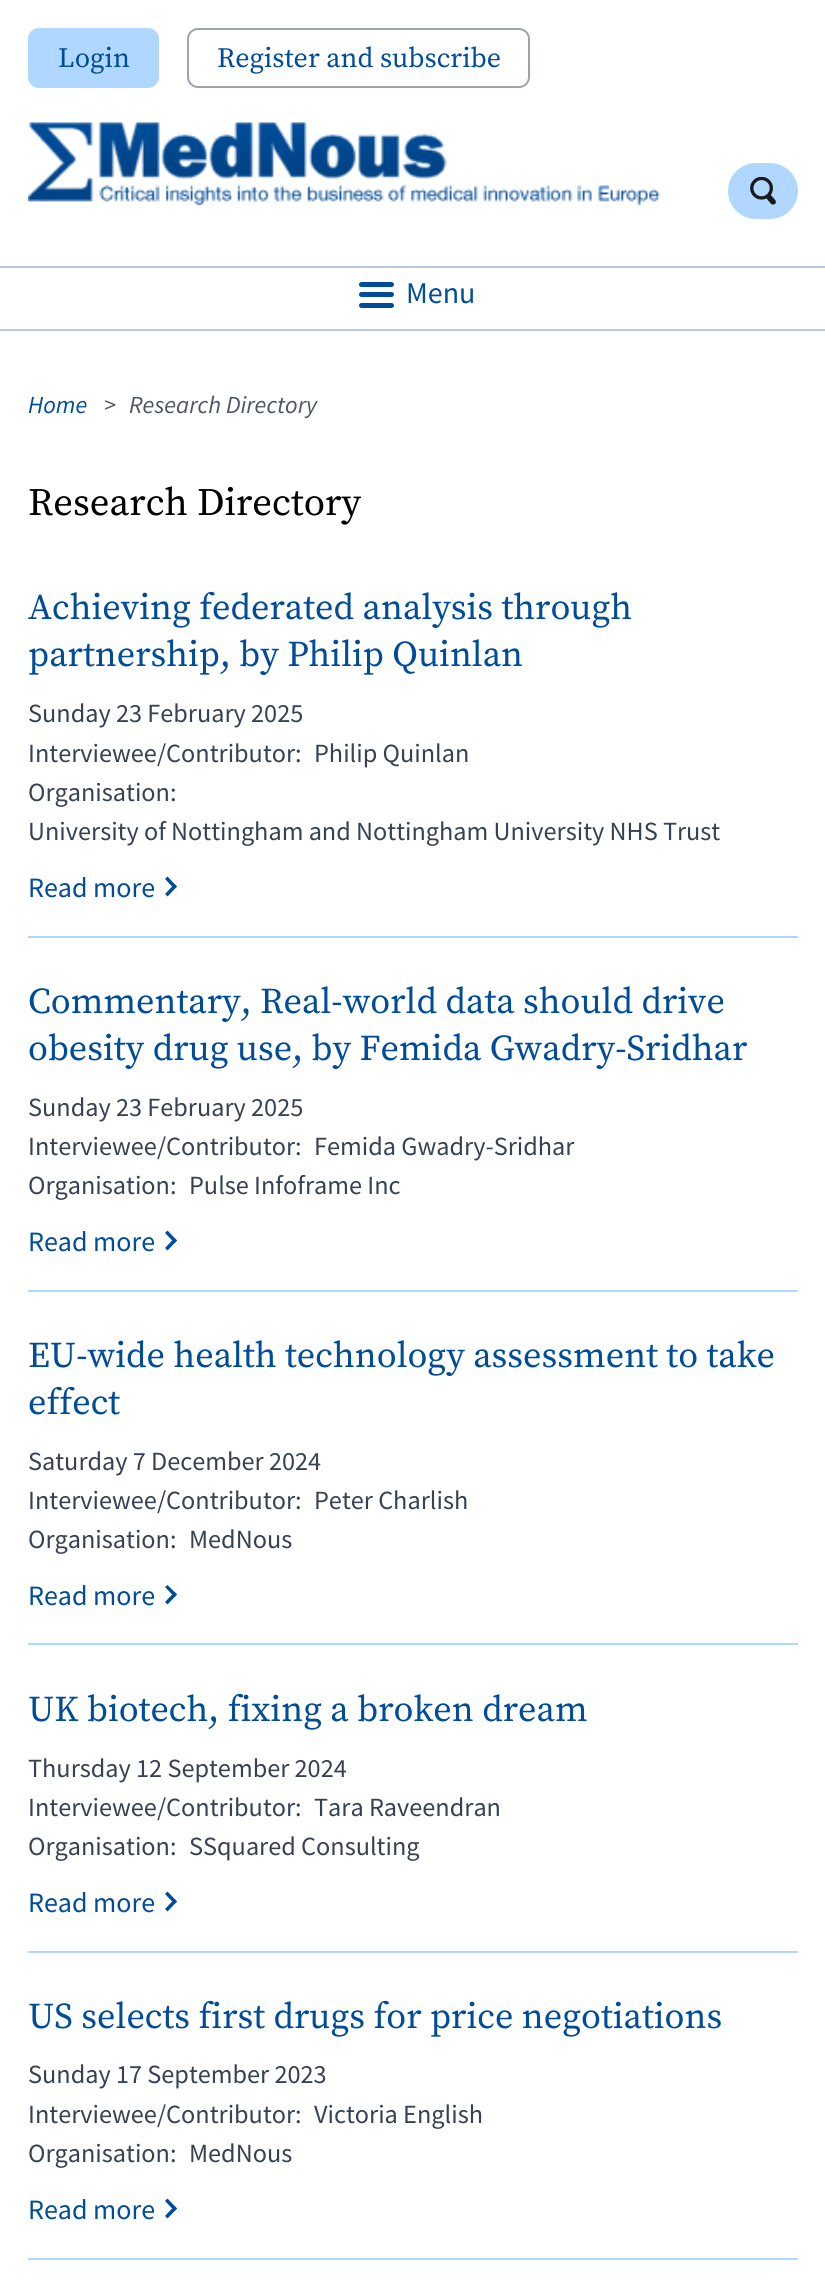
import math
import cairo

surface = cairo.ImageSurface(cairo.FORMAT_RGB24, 825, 2292)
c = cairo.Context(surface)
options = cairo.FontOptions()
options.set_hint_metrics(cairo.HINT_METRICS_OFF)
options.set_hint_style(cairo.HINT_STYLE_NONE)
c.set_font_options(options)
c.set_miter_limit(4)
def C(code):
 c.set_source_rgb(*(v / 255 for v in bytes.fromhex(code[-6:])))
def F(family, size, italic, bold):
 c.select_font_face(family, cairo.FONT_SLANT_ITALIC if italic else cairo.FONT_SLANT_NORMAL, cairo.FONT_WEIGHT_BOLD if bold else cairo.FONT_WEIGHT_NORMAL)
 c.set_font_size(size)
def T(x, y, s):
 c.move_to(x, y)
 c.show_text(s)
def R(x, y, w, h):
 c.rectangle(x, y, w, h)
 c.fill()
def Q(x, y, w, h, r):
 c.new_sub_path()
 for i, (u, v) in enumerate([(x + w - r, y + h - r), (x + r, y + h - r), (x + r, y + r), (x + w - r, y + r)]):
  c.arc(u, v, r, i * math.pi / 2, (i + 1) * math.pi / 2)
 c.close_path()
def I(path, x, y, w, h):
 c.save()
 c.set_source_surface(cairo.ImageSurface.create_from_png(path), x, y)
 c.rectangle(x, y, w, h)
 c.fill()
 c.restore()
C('ffffff')
c.paint()
C('b0d7ff')
Q(29,29,129,58,10)
c.fill_preserve()
c.stroke()
F('Source Serif Pro',28,0,0)
C('004c98')
T(58,67,'Login')
Q(188,29,341,58,10)
C('9ca3af')
c.stroke()
C('004c98')
T(217,67,'Register and subscribe')
I('1.png',28,122,633,84)
C('b0d7ff')
Q(728,163,70,56,28)
c.fill()
I('2.png',750,177,26,28)
C('b3c9e0')
R(0,266,825,2)
R(0,329,825,2)
C('004c98')
Q(359,282,35,5,2.5)
c.fill()
F('Source Sans Pro',30,0,0)
T(406,303,'Menu')
Q(359,292,35,5,2.5)
c.fill()
Q(359,303,35,5,2.5)
c.fill()
F('Source Sans Pro',24.5,1,0)
T(28,413,'Home')
C('4b5563')
T(104,413,'>')
T(129,413,'Research Directory')
F('Source Serif Pro',38.75,0,0)
C('000000')
T(28,515,'Research Directory')
C('b0d7ff')
R(28,936,770,2)
F('Source Serif Pro',36.25,0,0)
C('004c98')
T(28,619,'Achieving federated analysis through')
T(28,666,'partnership, by Philip Quinlan')
F('Source Sans Pro',26.25,0,0)
C('374151')
T(28,722,'Sunday 23 February 2025')
T(28,762,'Interviewee/Contributor:')
T(314,762,'Philip Quinlan')
T(28,801,'Organisation:')
T(28,840,'University of Nottingham and Nottingham University NHS Trust')
F('Source Sans Pro',28,0,0)
C('004c98')
T(28,897,'Read more')
c.new_path()
c.move_to(165,879)
c.line_to(167.5,876.5)
c.line_to(177,886.5)
c.line_to(174.5,889)
c.close_path()
c.fill()
c.new_path()
c.move_to(165,894)
c.line_to(174.5,884)
c.line_to(177,886.5)
c.line_to(167.5,896.5)
c.close_path()
c.fill()
C('b0d7ff')
R(28,1290,770,2)
F('Source Serif Pro',36.25,0,0)
C('004c98')
T(28,1013,'Commentary, Real-world data should drive')
T(28,1060,'obesity drug use, by Femida Gwadry-Sridhar')
F('Source Sans Pro',26.25,0,0)
C('374151')
T(28,1116,'Sunday 23 February 2025')
T(28,1155,'Interviewee/Contributor:')
T(314,1155,'Femida Gwadry-Sridhar')
T(28,1194,'Organisation:')
T(189,1194,'Pulse Infoframe Inc')
F('Source Sans Pro',28,0,0)
C('004c98')
T(28,1251,'Read more')
c.new_path()
c.move_to(165,1233)
c.line_to(167.5,1230.5)
c.line_to(177,1240.5)
c.line_to(174.5,1243)
c.close_path()
c.fill()
c.new_path()
c.move_to(165,1248)
c.line_to(174.5,1238)
c.line_to(177,1240.5)
c.line_to(167.5,1250.5)
c.close_path()
c.fill()
C('b0d7ff')
R(28,1643,770,2)
F('Source Serif Pro',36.25,0,0)
C('004c98')
T(28,1367,'EU-wide health technology assessment to take')
T(28,1414,'effect')
F('Source Sans Pro',26.25,0,0)
C('374151')
T(28,1470,'Saturday 7 December 2024')
T(28,1509,'Interviewee/Contributor:')
T(314,1509,'Peter Charlish')
T(28,1548,'Organisation:')
T(189,1548,'MedNous')
F('Source Sans Pro',28,0,0)
C('004c98')
T(28,1605,'Read more')
c.new_path()
c.move_to(165,1587)
c.line_to(167.5,1585)
c.line_to(177,1594.5)
c.line_to(174.5,1597)
c.close_path()
c.fill()
c.new_path()
c.move_to(165,1602)
c.line_to(174.5,1592)
c.line_to(177,1594.5)
c.line_to(167.5,1604.5)
c.close_path()
c.fill()
C('b0d7ff')
R(28,1951,770,2)
F('Source Serif Pro',36.25,0,0)
C('004c98')
T(28,1721,'UK biotech, fixing a broken dream')
F('Source Sans Pro',26.25,0,0)
C('374151')
T(28,1777,'Thursday 12 September 2024')
T(28,1816,'Interviewee/Contributor:')
T(314,1816,'Tara Raveendran')
T(28,1855,'Organisation:')
T(189,1855,'SSquared Consulting')
F('Source Sans Pro',28,0,0)
C('004c98')
T(28,1912,'Read more')
c.new_path()
c.move_to(165,1894)
c.line_to(167.5,1891.5)
c.line_to(177,1901.5)
c.line_to(174.5,1904)
c.close_path()
c.fill()
c.new_path()
c.move_to(165,1909)
c.line_to(174.5,1899)
c.line_to(177,1901.5)
c.line_to(167.5,1911.5)
c.close_path()
c.fill()
C('b0d7ff')
R(28,2258,770,2)
F('Source Serif Pro',36.25,0,0)
C('004c98')
T(28,2028,'US selects first drugs for price negotiations')
F('Source Sans Pro',26.25,0,0)
C('374151')
T(28,2083,'Sunday 17 September 2023')
T(28,2123,'Interviewee/Contributor:')
T(314,2123,'Victoria English')
T(28,2162,'Organisation:')
T(189,2162,'MedNous')
F('Source Sans Pro',28,0,0)
C('004c98')
T(28,2219,'Read more')
c.new_path()
c.move_to(165,2201)
c.line_to(167.5,2198.5)
c.line_to(177,2208.5)
c.line_to(174.5,2211)
c.close_path()
c.fill()
c.new_path()
c.move_to(165,2216)
c.line_to(174.5,2206)
c.line_to(177,2208.5)
c.line_to(167.5,2218.5)
c.close_path()
c.fill()
surface.write_to_png('o.png')
